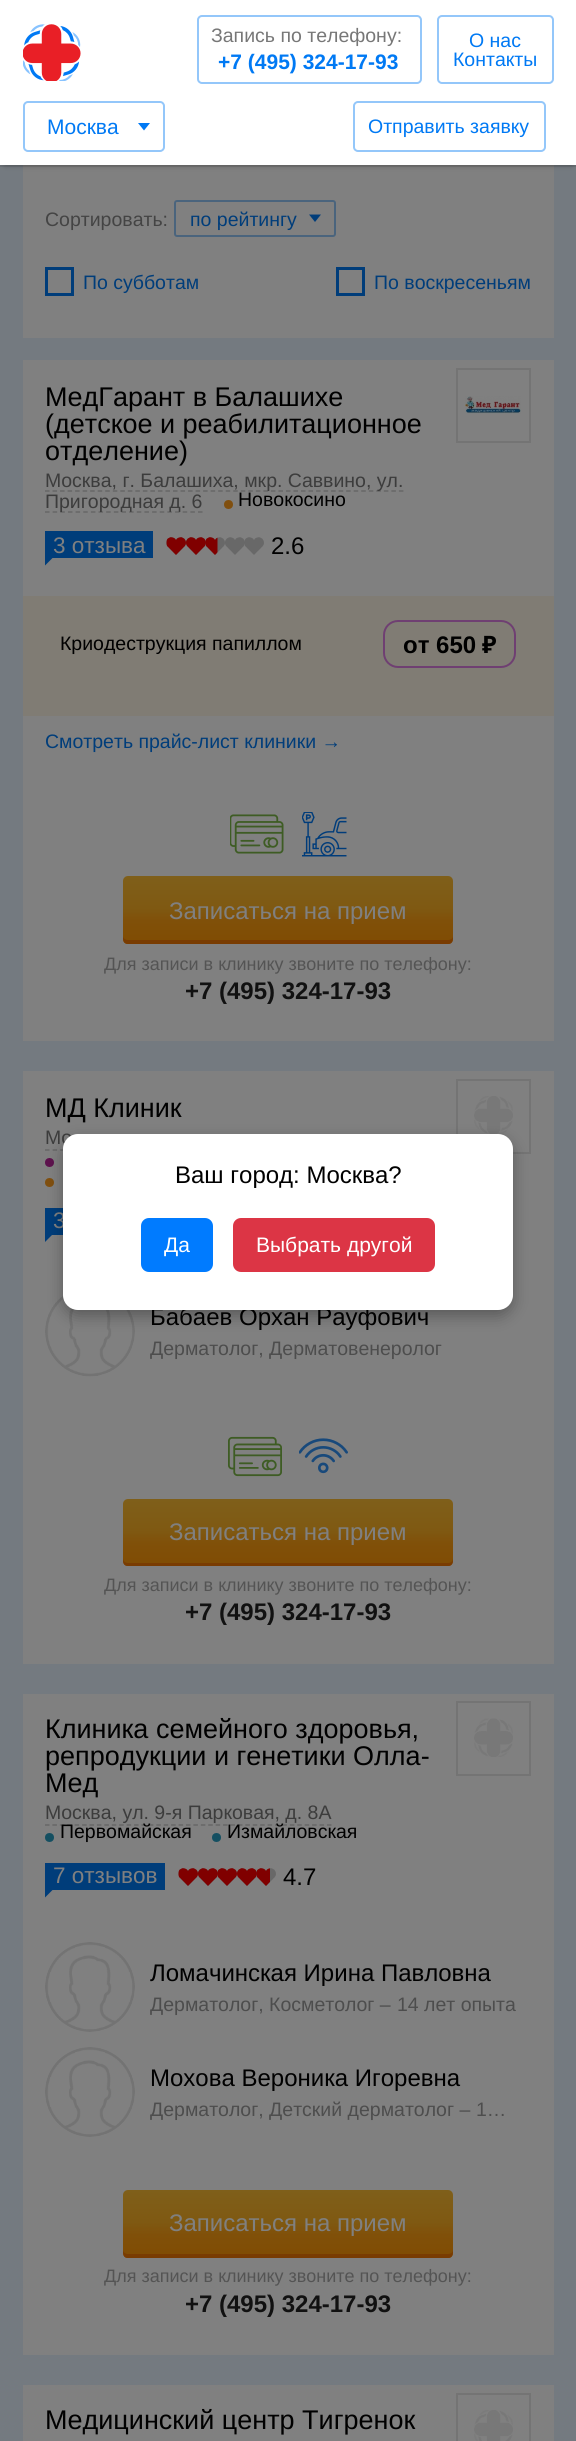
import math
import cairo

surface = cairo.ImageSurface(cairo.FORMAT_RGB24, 576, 2441)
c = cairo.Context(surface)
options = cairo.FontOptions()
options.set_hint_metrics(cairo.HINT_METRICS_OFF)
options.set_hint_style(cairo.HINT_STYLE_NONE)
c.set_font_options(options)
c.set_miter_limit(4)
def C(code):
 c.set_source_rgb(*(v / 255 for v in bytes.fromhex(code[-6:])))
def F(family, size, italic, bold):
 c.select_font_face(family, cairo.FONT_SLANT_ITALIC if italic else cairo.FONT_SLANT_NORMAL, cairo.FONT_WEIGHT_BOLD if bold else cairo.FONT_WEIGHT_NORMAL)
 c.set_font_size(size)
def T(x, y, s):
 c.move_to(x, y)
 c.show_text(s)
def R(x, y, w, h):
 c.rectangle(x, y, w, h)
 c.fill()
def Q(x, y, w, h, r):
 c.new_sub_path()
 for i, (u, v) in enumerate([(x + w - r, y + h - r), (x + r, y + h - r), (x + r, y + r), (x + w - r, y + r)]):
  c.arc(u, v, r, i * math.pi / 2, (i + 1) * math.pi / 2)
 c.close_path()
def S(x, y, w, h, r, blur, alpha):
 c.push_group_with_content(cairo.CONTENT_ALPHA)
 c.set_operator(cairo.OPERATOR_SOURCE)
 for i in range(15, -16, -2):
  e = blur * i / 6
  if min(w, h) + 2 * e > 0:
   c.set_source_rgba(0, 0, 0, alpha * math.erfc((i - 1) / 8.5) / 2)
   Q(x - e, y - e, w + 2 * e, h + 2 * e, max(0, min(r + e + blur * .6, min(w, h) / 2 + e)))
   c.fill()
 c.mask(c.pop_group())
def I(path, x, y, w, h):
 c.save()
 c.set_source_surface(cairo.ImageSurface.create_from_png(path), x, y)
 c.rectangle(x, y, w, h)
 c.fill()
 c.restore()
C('747a80')
c.paint()
C('808080')
R(23,165,531,173)
C('000000')
S(5,9,567,156,0,3,.3)
c.rectangle(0,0,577,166)
c.set_source_rgba(0,0,0,0.1)
c.stroke()
C('ffffff')
R(0,0,576,165)
I('1.png',23,24,58,57)
Q(198,16,223,67,4)
C('94c7fa')
c.stroke()
F('Liberation Sans',19.5,0,0)
C('777777')
T(211,42,'Запись по телефону:')
F('Liberation Sans',21,0,1)
C('0079f4')
T(218,69,'+7 (495) 324-17-93')
Q(438,16,115,67,4)
C('94c7fa')
c.stroke()
F('Liberation Sans',19.5,0,0)
C('0079f4')
T(469,47,'О нас')
T(453,66,'Контакты')
Q(354,102,191,49,4)
C('94c7fa')
c.stroke()
C('0079f4')
T(368,133,'Отправить заявку')
Q(24,102,140,49,4)
C('94c7fa')
c.stroke()
F('Liberation Sans',21,0,0)
C('0079f4')
T(47,134,'Москва')
c.new_path()
c.move_to(138,123)
c.line_to(150,123)
c.line_to(144,130.5)
c.close_path()
c.fill()
F('Liberation Sans',19.5,0,0)
C('444444')
T(45,226,'Сортировать:')
Q(175,201,160,35,2)
C('4a647d')
c.stroke()
C('003d7a')
T(190,226,'по рейтингу')
c.new_path()
c.move_to(309,214.5)
c.line_to(321,214.5)
c.line_to(315,222)
c.close_path()
c.fill()
c.rectangle(46.5,268.5,26,26)
c.set_line_width(3)
c.stroke()
T(83,289,'По субботам')
c.rectangle(337.5,268.5,26,26)
c.stroke()
T(374,289,'По воскресеньям')
C('808080')
R(23,360,531,681)
F('Liberation Sans',27,0,0)
C('000000')
T(45,406,'МедГарант в Балашихе')
c.rectangle(457,369,73,73)
C('747474')
c.set_line_width(2)
c.stroke()
I('2.png',465,396,56,18)
C('000000')
T(45,433,'(детское и реабилитационное')
T(45,460,'отделение)')
c.new_path()
c.move_to(45,491)
c.line_to(403.5,491)
C('666666')
c.set_line_width(1.5)
c.set_dash([4.5,3.03])
c.stroke()
F('Liberation Sans',19.5,0,0)
C('3c3c3c')
T(45,487,'Москва, г. Балашиха, мкр. Саввино, ул.')
c.new_path()
c.move_to(45,512)
c.line_to(202.5,512)
C('666666')
c.set_dash([4.5,3.15])
c.stroke()
C('3c3c3c')
T(45,508,'Пригородная д. 6')
C('804f0f')
c.new_path()
c.arc(228.5,504.5,4.5,0,2 * math.pi)
c.fill()
C('000000')
T(238,506,'Новокосино')
C('003d7a')
R(45,531,108,27)
F('Liberation Sans',22.5,0,0)
C('808080')
T(53,553,'3 отзыва')
C('003d7a')
c.new_path()
c.move_to(45,565.5)
c.line_to(45,541.5)
c.line_to(57,553.5)
c.close_path()
c.fill()
I('3.png',166,537,98,18)
I('4.png',166,537,52,18)
F('Liberation Sans',24,0,0)
C('000000')
T(271,554,'2.6')
C('807c74')
R(23,596,531,120)
F('Liberation Sans',19.5,0,0)
C('000000')
T(60,650,'Криодеструкция папиллом')
Q(384,621,131,46,14)
C('6f3f72')
c.set_line_width(2)
c.set_dash([])
c.stroke()
F('Liberation Sans',24,0,1)
C('000000')
T(403,653,'от 650')
F('Noto Sans',24,0,1)
T(482,653,'₽')
F('Liberation Sans',19.5,0,0)
C('003d7a')
T(45,748,'Смотреть прайс-лист клиники →')
I('5.png',230,814,54,40)
I('6.png',302,812,45,45)
gradient = cairo.LinearGradient(288,876,288,944)
gradient.add_color_stop_rgba(0,0.498,0.373,0.102,1)
gradient.add_color_stop_rgba(.47,0.498,0.349,0.071,1)
gradient.add_color_stop_rgba(.66,0.502,0.314,0.035,1)
gradient.add_color_stop_rgba(1,0.502,0.298,0.012,1)
c.set_source(gradient)
Q(123,876,330,68,5)
c.fill()
C('793c02')
c.new_path()
c.move_to(123,936)
c.curve_to(123,940,123,944,128,944)
c.line_to(448,944)
c.curve_to(453,944,453,940,453,936)
c.curve_to(453,938,451,940,448,940)
c.line_to(128,940)
c.curve_to(125,940,123,938,123,936)
c.close_path()
c.fill()
F('Liberation Sans',24,0,0)
C('808080')
T(169,919,'Записаться на прием')
F('Liberation Sans',18,0,0)
C('545454')
T(104,970,'Для записи в клинику звоните по телефону:')
F('Liberation Sans',24,0,1)
C('111111')
T(185,999,'+7 (495) 324-17-93')
C('808080')
R(23,1071,531,593)
F('Liberation Sans',27,0,0)
C('000000')
T(45,1117,'МД Клиник')
c.rectangle(457,1080,73,73)
C('747474')
c.stroke()
I('7.png',474,1096,39,39)
F('Liberation Sans',19.5,0,0)
C('3c3c3c')
T(45,1144,'Мо')
c.new_path()
c.move_to(45,1150)
c.line_to(345,1150)
C('666666')
c.set_line_width(1.5)
c.set_dash([4.5,3.07])
c.stroke()
C('5d124d')
c.arc(49.5,1162.5,4.5,0,2 * math.pi)
c.fill()
C('804f0f')
c.arc(49.5,1182.5,4.5,0,2 * math.pi)
c.fill()
C('003d7a')
R(45,1208,18,27)
F('Liberation Sans',22.5,0,0)
C('808080')
T(53,1228,'3')
C('003d7a')
c.new_path()
c.move_to(45,1242)
c.line_to(45,1218)
c.line_to(57,1230)
c.close_path()
c.fill()
I('8.png',45,1295,90,82)
F('Liberation Sans',24,0,0)
C('000000')
T(150,1325,'Бабаев Орхан Рауфович')
F('Liberation Sans',19.5,0,0)
C('4d4d4d')
T(150,1355,'Дерматолог, Дерматовенеролог')
I('9.png',228,1436,54,41)
I('10.png',299,1438,49,36)
gradient = cairo.LinearGradient(288,1499,288,1566)
gradient.add_color_stop_rgba(0,0.498,0.373,0.102,1)
gradient.add_color_stop_rgba(.47,0.498,0.349,0.071,1)
gradient.add_color_stop_rgba(.66,0.502,0.314,0.035,1)
gradient.add_color_stop_rgba(1,0.502,0.298,0.012,1)
c.set_source(gradient)
Q(123,1499,330,67,5)
c.fill()
C('793c02')
c.new_path()
c.move_to(123,1558)
c.curve_to(123,1562,123,1566,128,1566)
c.line_to(448,1566)
c.curve_to(453,1566,453,1562,453,1558)
c.curve_to(453,1561,451,1563,448,1563)
c.line_to(128,1563)
c.curve_to(125,1563,123,1561,123,1558)
c.close_path()
c.fill()
F('Liberation Sans',24,0,0)
C('808080')
T(169,1540,'Записаться на прием')
F('Liberation Sans',18,0,0)
C('545454')
T(104,1591,'Для записи в клинику звоните по телефону:')
F('Liberation Sans',24,0,1)
C('111111')
T(185,1620,'+7 (495) 324-17-93')
C('808080')
R(23,1694,531,661)
F('Liberation Sans',27,0,0)
C('000000')
T(45,1738,'Клиника семейного здоровья,')
c.rectangle(457,1702,73,73)
C('747474')
c.set_line_width(2)
c.set_dash([])
c.stroke()
I('11.png',474,1718,39,39)
C('000000')
T(45,1765,'репродукции и генетики Олла-')
T(45,1792,'Мед')
F('Liberation Sans',19.5,0,0)
C('3c3c3c')
T(45,1819,'Москва, ул. 9-я Парковая, д. 8А')
c.new_path()
c.move_to(45,1825)
c.line_to(331.5,1825)
C('666666')
c.set_line_width(1.5)
c.set_dash([4.5,2.92])
c.stroke()
C('144f61')
c.arc(49.5,1837.5,4.5,0,2 * math.pi)
c.fill()
C('000000')
T(60,1838,'Первомайская')
C('144f61')
c.new_path()
c.arc(216.5,1837.5,4.5,0,2 * math.pi)
c.fill()
C('000000')
T(227,1838,'Измайловская')
C('003d7a')
R(45,1863,120,27)
F('Liberation Sans',22.5,0,0)
C('808080')
T(53,1883,'7 отзывов')
C('003d7a')
c.new_path()
c.move_to(45,1897.5)
c.line_to(45,1873.5)
c.line_to(57,1885.5)
c.close_path()
c.fill()
I('3.png',178,1868,98,18)
I('12.png',178,1868,92,18)
F('Liberation Sans',24,0,0)
C('000000')
T(283,1885,'4.7')
I('13.png',45,1942,90,90)
T(150,1981,'Ломачинская Ирина Павловна')
F('Liberation Sans',19.5,0,0)
C('4d4d4d')
T(150,2011,'Дерматолог, Косметолог –')
T(397,2011,'14 лет опыта')
I('13.png',45,2047,90,90)
F('Liberation Sans',24,0,0)
C('000000')
T(150,2086,'Мохова Вероника Игоревна')
F('Liberation Sans',19.5,0,0)
C('4d4d4d')
T(150,2116,'Дерматолог, Детский дерматолог –')
T(476,2116,'1…')
gradient = cairo.LinearGradient(288,2190,288,2258)
gradient.add_color_stop_rgba(0,0.498,0.373,0.102,1)
gradient.add_color_stop_rgba(.47,0.498,0.349,0.071,1)
gradient.add_color_stop_rgba(.66,0.502,0.314,0.035,1)
gradient.add_color_stop_rgba(1,0.502,0.298,0.012,1)
c.set_source(gradient)
Q(123,2190,330,68,5)
c.fill()
C('793c02')
c.new_path()
c.move_to(123,2250)
c.curve_to(123,2254,123,2258,128,2258)
c.line_to(448,2258)
c.curve_to(453,2258,453,2254,453,2250)
c.curve_to(453,2252,451,2254,448,2254)
c.line_to(128,2254)
c.curve_to(125,2254,123,2252,123,2250)
c.close_path()
c.fill()
F('Liberation Sans',24,0,0)
C('808080')
T(169,2231,'Записаться на прием')
F('Liberation Sans',18,0,0)
C('545454')
T(104,2282,'Для записи в клинику звоните по телефону:')
F('Liberation Sans',24,0,1)
C('111111')
T(185,2312,'+7 (495) 324-17-93')
C('808080')
R(23,2385,531,56)
F('Liberation Sans',27,0,0)
C('000000')
T(45,2429,'Медицинский центр Тигренок')
c.rectangle(457,2394,73,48)
C('747474')
c.set_line_width(2)
c.set_dash([])
c.stroke()
I('14.png',474,2410,39,31)
C('000000')
S(63,1140,450,176,15,7.5,.3)
C('ffffff')
Q(63,1134,450,176,15)
c.fill()
F('Liberation Sans',24,0,0)
C('000000')
T(175,1183,'Ваш город: Москва?')
C('007bff')
Q(141,1218,72,54,8)
c.fill()
F('Liberation Sans',21,0,0)
C('ffffff')
T(164,1252,'Да')
C('dc3545')
Q(233,1218,202,54,8)
c.fill()
C('ffffff')
T(256,1252,'Выбрать другой')
surface.write_to_png('o.png')
